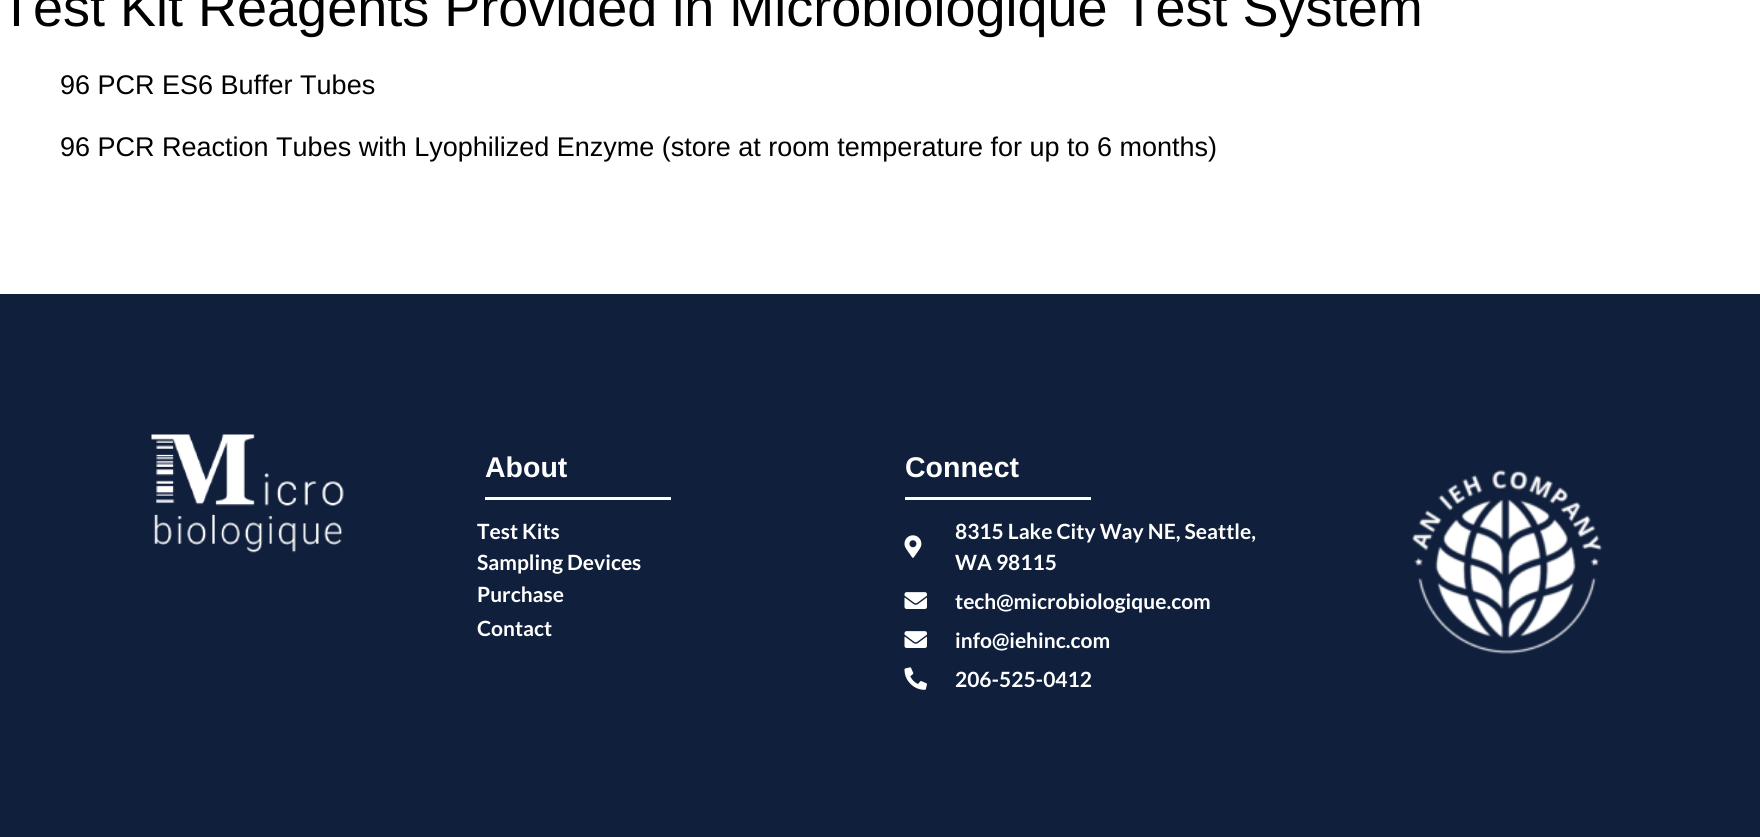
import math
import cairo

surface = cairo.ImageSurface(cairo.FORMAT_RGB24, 1760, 837)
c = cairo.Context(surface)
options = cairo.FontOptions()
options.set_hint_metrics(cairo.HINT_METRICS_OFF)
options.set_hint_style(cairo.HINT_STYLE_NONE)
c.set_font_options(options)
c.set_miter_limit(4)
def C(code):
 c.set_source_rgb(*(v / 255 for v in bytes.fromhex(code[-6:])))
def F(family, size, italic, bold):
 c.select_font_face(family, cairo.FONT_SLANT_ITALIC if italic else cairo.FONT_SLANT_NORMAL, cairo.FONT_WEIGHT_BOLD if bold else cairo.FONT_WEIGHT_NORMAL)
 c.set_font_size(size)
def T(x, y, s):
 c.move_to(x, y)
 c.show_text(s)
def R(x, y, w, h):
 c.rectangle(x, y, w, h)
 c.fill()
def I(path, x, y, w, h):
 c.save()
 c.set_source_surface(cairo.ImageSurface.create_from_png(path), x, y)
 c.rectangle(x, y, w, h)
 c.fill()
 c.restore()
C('ffffff')
c.paint()
F('Liberation Sans',54,0,0)
C('000000')
T(0,26,'Test Kit Reagents Provided in Microbiologique Test System')
F('Liberation Sans',27,0,0)
T(60,94,'96 PCR ES6 Buffer Tubes')
T(60,156,'96 PCR Reaction Tubes with Lyophilized Enzyme (store at room temperature for up to 6 months)')
C('0f1f3c')
R(0,294,1760,543)
I('1.png',151,434,193,119)
F('Liberation Sans',28.5,0,1)
C('ffffff')
T(485,477,'About')
R(485,497,186,3)
F('Lato',21,0,1)
T(477,539,'Test Kits')
T(477,570,'Sampling Devices')
T(477,602,'Purchase')
T(477,636,'Contact')
F('Liberation Sans',28.5,0,1)
T(905,477,'Connect')
R(905,497,186,3)
I('2.png',904,535,18,23)
F('Lato',21,0,1)
T(955,539,'8315 Lake City Way NE, Seattle,')
T(955,570,'WA 98115')
I('3.png',904,592,23,17)
T(955,609,'tech@microbiologique.com')
I('3.png',904,631,23,17)
T(955,648,'info@iehinc.com')
I('4.png',904,667,23,23)
T(955,687,'206-525-0412')
I('5.png',1411,470,192,184)
surface.write_to_png('o.png')
